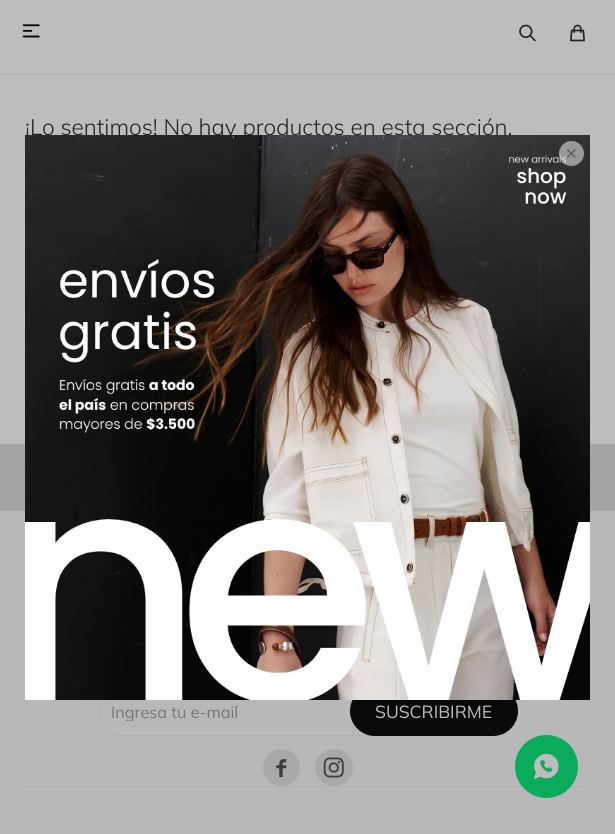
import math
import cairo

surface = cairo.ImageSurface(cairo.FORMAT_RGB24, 615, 834)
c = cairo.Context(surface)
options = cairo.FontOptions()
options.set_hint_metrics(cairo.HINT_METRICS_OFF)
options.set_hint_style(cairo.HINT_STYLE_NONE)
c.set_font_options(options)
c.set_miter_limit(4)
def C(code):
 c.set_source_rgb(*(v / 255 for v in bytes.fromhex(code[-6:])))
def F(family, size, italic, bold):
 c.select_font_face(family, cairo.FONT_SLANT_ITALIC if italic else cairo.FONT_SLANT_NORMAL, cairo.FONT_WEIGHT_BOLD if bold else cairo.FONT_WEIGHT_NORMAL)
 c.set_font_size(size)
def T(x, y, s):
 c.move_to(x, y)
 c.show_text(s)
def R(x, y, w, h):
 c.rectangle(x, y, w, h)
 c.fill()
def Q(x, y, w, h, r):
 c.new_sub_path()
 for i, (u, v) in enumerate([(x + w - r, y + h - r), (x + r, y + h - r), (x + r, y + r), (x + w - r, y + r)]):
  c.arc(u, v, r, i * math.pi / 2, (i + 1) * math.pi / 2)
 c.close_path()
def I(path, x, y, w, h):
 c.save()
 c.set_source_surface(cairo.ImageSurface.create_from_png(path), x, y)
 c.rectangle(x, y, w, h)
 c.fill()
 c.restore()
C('bdbdbd')
c.paint()
I('1.png',22,24,18,14)
I('2.png',519,24,17,18)
I('3.png',570,24,15,18)
C('b0b0b0')
R(0,74,615,1)
F('Mulish Light',22.5,0,0)
C('222222')
T(25,135,'¡Lo sentimos! No hay productos en esta sección.')
C('b8b8b8')
R(0,443,615,391)
C('a5a5a5')
R(0,444,615,67)
Q(98.5,686.5,419,49,24.5)
C('b0b0b0')
c.set_line_width(1)
c.stroke()
c.save()
c.rectangle(111,701,330,20)
c.clip()
F('Mulish',16.25,0,0)
C('757575')
T(111,718,'Ingresa tu e-mail')
c.restore()
C('0a0a0a')
Q(350,686,168,50,25)
c.fill()
F('Mulish',17.5,0,0)
C('bdbdbd')
T(375,718,'SUSCRIBIRME')
C('a9a9a9')
c.new_path()
c.arc(281.5,767.5,18.5,0,2 * math.pi)
c.fill()
I('4.png',276,759,11,19)
Q(315,749,38,37,18.5)
c.fill()
I('5.png',323,757,21,21)
C('b0b0b0')
R(25,786,565,1)
I('6.png',25,135,565,565)
c.set_source_rgba(1,1,1,0.5)
c.arc(571.5,153.5,12.5,0,2 * math.pi)
c.fill()
I('7.png',567,149,9,9)
C('0bab5c')
c.arc(546.5,766.5,31.5,0,2 * math.pi)
c.fill()
I('8.png',534,753,25,26)
surface.write_to_png('o.png')
